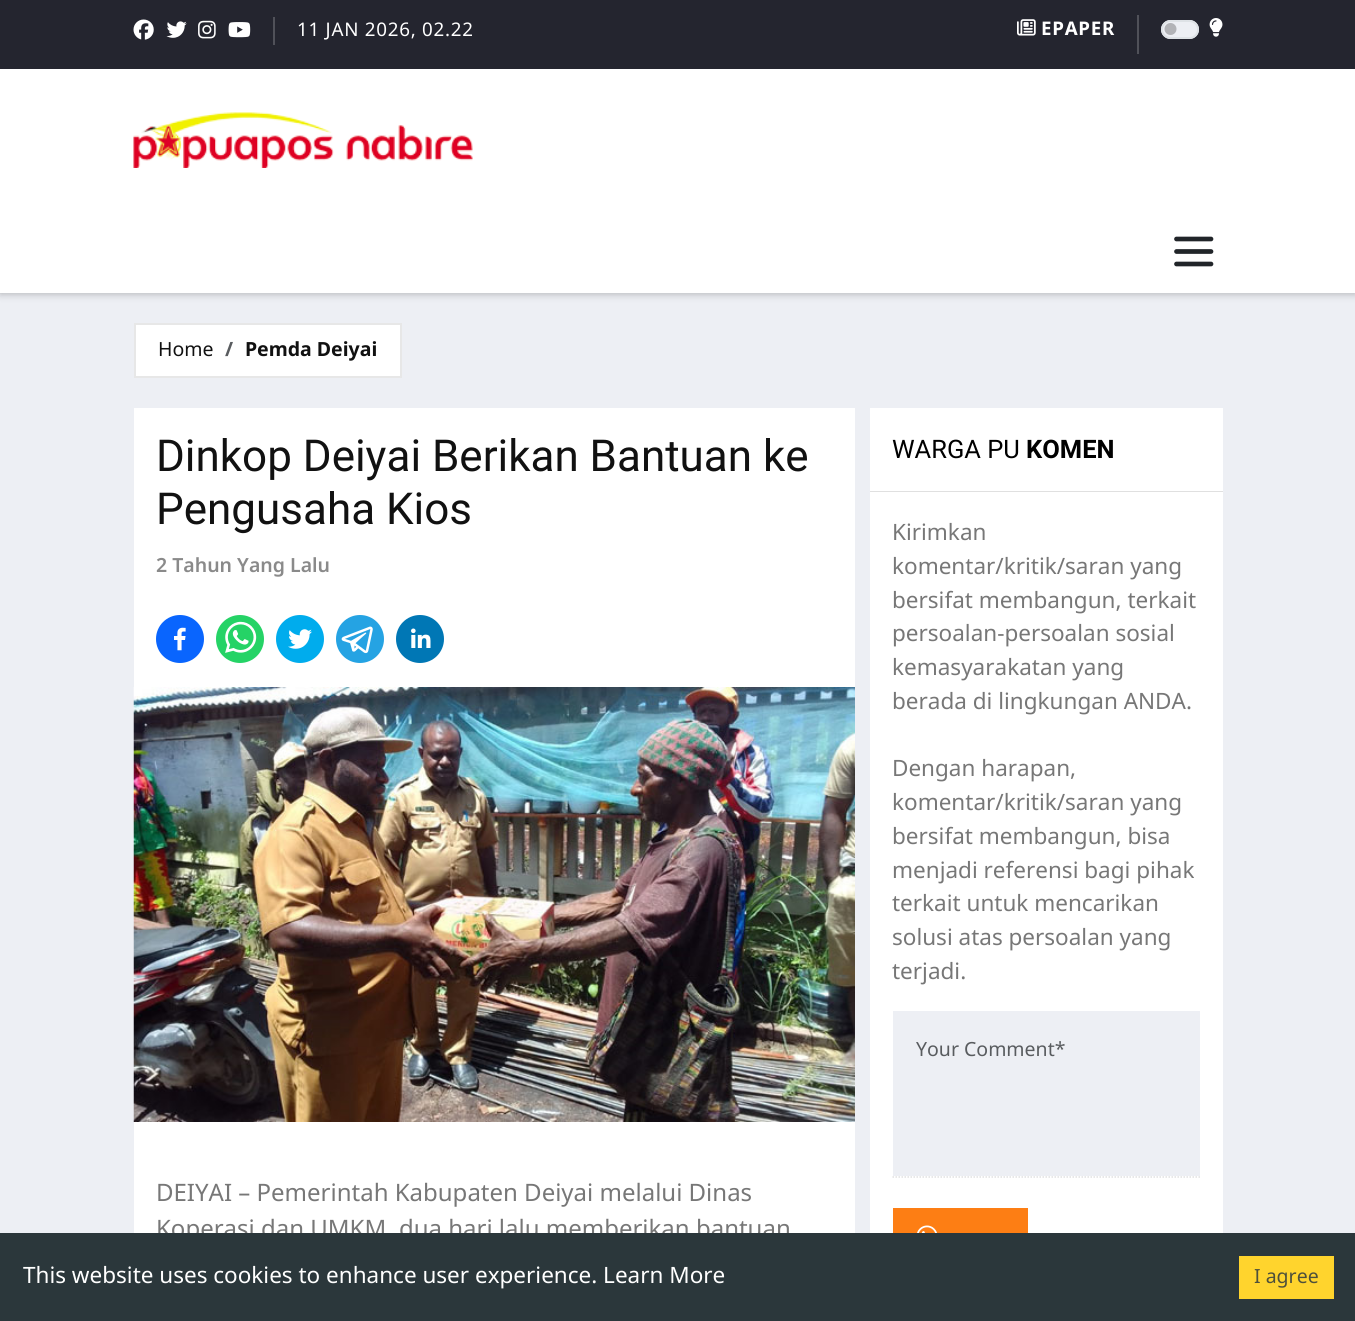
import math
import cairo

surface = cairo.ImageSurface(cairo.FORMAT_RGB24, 1355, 1321)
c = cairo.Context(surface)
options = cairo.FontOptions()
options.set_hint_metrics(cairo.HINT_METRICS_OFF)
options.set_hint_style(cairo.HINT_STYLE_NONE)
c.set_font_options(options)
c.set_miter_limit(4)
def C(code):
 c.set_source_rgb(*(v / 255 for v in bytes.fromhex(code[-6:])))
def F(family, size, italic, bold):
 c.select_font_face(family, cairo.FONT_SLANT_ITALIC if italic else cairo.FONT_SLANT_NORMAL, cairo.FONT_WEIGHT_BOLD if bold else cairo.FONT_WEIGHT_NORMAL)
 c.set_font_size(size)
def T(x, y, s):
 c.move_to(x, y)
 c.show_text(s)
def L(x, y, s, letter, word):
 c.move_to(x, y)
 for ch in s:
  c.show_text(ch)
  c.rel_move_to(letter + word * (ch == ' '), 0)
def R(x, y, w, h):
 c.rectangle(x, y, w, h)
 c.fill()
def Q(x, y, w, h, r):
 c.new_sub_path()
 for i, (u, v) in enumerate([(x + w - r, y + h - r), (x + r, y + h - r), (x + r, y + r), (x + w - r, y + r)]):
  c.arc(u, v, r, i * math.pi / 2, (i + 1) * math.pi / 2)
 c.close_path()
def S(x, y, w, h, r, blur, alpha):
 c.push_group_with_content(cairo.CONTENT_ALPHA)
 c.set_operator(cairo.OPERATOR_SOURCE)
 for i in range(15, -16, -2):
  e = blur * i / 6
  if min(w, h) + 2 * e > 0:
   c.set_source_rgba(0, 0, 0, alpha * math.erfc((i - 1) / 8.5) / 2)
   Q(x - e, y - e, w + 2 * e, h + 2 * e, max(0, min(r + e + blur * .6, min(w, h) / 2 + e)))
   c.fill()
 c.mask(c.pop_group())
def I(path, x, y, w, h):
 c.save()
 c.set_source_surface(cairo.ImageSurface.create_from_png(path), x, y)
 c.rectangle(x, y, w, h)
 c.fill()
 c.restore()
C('edeff4')
c.paint()
C('000000')
S(0,2,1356,292,0,4,.25)
C('24252f')
R(0,0,1355,69)
I('1.png',133,19,21,21)
I('2.png',166,21,21,17)
I('3.png',198,20,18,19)
I('4.png',228,22,23,16)
C('505159')
R(273,17,2,28)
F('Noto Sans',18.75,0,0)
C('ffffff')
L(297,36,'11 JAN 2026, 02.22',.75,0)
I('5.png',1017,19,19,17)
F('Noto Sans',18.75,0,1)
L(1041,35,'EPAPER',.75,0)
C('505159')
R(1137,15,2,39)
C('edeff4')
Q(1161,20,38,19,9.5)
c.fill()
C('b2b3b7')
c.arc(1170.5,29,6,0,2 * math.pi)
c.fill()
Q(1162,21,36,17,8.5)
C('dee2e6')
c.stroke()
I('6.png',1209,18,14,19)
C('ffffff')
R(0,69,1355,224)
I('7.png',133,112,340,56)
c.new_path()
c.move_to(1176.5,239)
c.line_to(1211,239)
c.move_to(1176.5,251.5)
c.line_to(1211,251.5)
c.move_to(1176.5,264)
c.line_to(1211,264)
C('212529')
c.set_line_width(4.7)
c.set_line_cap(cairo.LINE_CAP_ROUND)
c.stroke()
C('ffffff')
c.rectangle(135,324,266,53)
c.fill_preserve()
C('e7e7e7')
c.set_line_width(2)
c.set_line_cap(cairo.LINE_CAP_BUTT)
c.stroke()
F('Noto Sans',19.5,0,0)
C('111111')
T(158,356,'Home')
F('Noto Sans',19.5,0,1)
C('595c5f')
T(225,356,'/')
C('111111')
T(245,356,'Pemda Deiyai')
C('ffffff')
R(134,408,721,825)
F('Roboto',44,0,0)
C('111111')
T(156,471,'Dinkop Deiyai Berikan Bantuan ke')
T(156,524,'Pengusaha Kios')
F('Noto Sans SemiBold',19.5,0,0)
C('8a8a8a')
T(156,572,'2 Tahun Yang Lalu')
I('8.png',156,615,48,48)
I('9.png',216,615,48,48)
I('10.png',276,615,48,48)
I('11.png',336,615,48,48)
I('12.png',396,615,48,48)
I('13.png',133,687,722,435)
F('Noto Sans',24,0,0)
C('777777')
T(156,1201,'DEIYAI – Pemerintah Kabupaten Deiyai melalui Dinas')
T(156,1237,'Koperasi dan UMKM, dua hari lalu memberikan bantuan')
C('ffffff')
R(870,408,353,83)
C('e0e0e0')
R(870,491,353,1)
F('Roboto',25.5,0,0)
C('000000')
T(892,458,'WARGA PU')
F('Roboto',25.5,0,1)
T(1026,458,'KOMEN')
C('ffffff')
R(870,492,353,741)
F('Noto Sans',22.5,0,0)
C('777777')
T(892,540,'Kirimkan')
T(892,574,'komentar/kritik/saran yang')
T(892,608,'bersifat membangun, terkait')
T(892,641,'persoalan-persoalan sosial')
T(892,675,'kemasyarakatan yang')
T(892,709,'berada di lingkungan ANDA.')
T(892,776,'Dengan harapan,')
T(892,810,'komentar/kritik/saran yang')
T(892,844,'bersifat membangun, bisa')
T(892,878,'menjadi referensi bagi pihak')
T(892,911,'terkait untuk mencarikan')
T(892,945,'solusi atas persoalan yang')
T(892,979,'terjadi.')
C('edeff4')
R(893,1011,307,165)
c.new_path()
c.move_to(892.5,1177)
c.line_to(1200,1177)
C('e0e0e0')
c.set_line_width(1.5)
c.set_dash([1.5,1.5])
c.stroke()
F('Noto Sans',19.5,0,0)
C('595c5f')
T(916,1056,'Your Comment*')
C('fd7e14')
R(893,1208,135,25)
I('14.png',917,1225,20,8)
C('2b373b')
R(0,1233,1355,88)
F('Noto Sans',22.5,0,0)
C('ffffff')
T(23,1283,'This website uses cookies to enhance user experience. Learn More')
C('ffd42d')
R(1239,1256,95,43)
F('Noto Sans',19.5,0,0)
C('4e503b')
T(1254,1283,'I agree')
surface.write_to_png('o.png')
